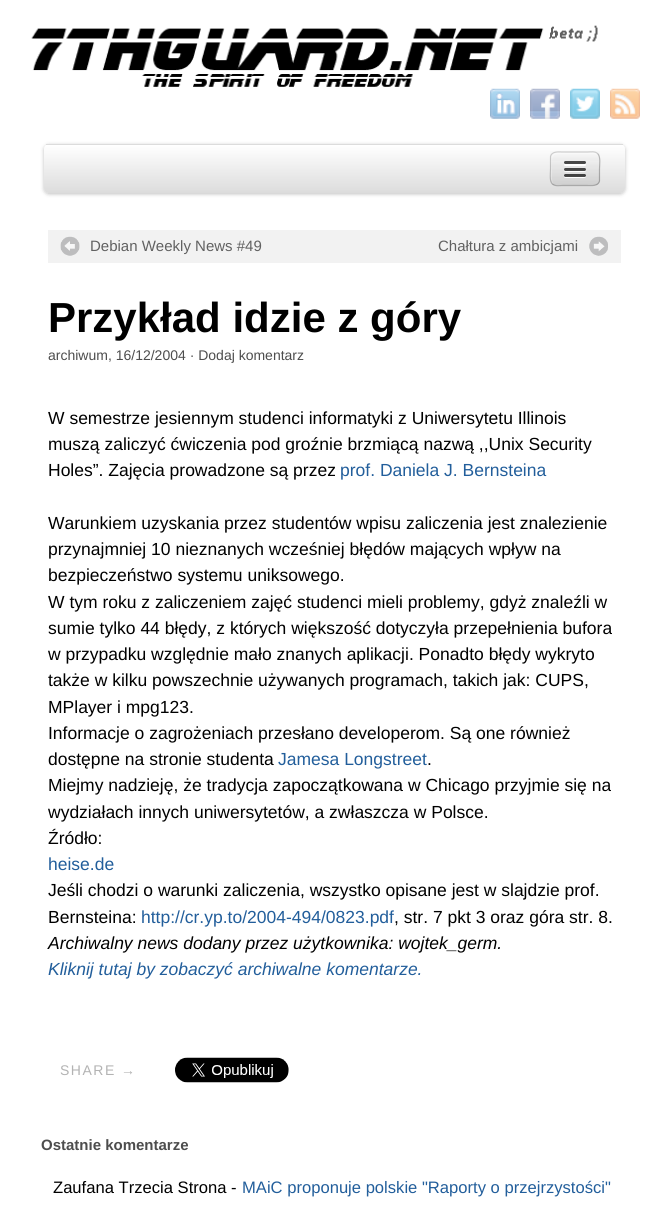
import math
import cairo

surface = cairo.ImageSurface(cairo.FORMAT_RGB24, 668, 1217)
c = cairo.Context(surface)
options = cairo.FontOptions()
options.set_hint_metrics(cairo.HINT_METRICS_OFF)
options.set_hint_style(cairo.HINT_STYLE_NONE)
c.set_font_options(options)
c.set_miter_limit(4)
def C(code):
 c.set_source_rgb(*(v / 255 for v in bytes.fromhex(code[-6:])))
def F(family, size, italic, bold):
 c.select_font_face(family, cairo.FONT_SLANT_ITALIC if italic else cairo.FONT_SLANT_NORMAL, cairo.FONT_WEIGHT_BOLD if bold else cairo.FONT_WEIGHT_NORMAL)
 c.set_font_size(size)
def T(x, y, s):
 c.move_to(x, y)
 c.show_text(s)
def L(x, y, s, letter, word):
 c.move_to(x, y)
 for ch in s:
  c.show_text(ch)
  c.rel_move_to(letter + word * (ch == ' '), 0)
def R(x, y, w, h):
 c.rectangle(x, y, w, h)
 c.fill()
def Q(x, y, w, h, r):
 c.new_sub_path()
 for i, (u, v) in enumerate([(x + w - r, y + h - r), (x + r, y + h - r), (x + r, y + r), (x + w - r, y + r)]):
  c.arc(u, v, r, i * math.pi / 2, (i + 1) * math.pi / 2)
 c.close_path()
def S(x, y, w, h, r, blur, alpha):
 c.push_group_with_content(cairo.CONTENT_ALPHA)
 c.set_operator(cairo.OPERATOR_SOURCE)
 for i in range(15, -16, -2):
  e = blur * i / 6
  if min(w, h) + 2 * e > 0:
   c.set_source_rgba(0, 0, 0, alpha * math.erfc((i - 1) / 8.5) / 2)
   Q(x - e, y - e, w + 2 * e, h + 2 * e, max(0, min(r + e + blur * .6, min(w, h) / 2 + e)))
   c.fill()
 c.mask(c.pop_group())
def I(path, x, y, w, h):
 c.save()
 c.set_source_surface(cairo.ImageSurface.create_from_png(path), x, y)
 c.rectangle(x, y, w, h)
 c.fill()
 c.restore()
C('ffffff')
c.paint()
I('1.png',31,25,567,62)
I('2.png',490,88,30,31)
I('3.png',530,88,30,31)
I('4.png',570,88,30,31)
I('5.png',610,88,30,31)
C('000000')
S(44,145,581,49,5,2,.25)
C('f1f1f1')
Q(44,144,581,49,5)
c.fill()
c.save()
Q(44,144,581,49,5)
c.clip()
gradient = cairo.LinearGradient(334,145,334,193)
gradient.add_color_stop_rgba(0,1,1,1,1)
gradient.add_color_stop_rgba(1,0.863,0.863,0.863,1)
c.set_source(gradient)
c.new_path()
c.move_to(44,145)
c.line_to(625,145)
c.line_to(625,188)
c.curve_to(625,191,623,193,620,193)
c.line_to(49,193)
c.curve_to(46,193,44,191,44,188)
c.close_path()
c.fill()
c.restore()
C('dcdcdc')
R(46,144,577,1)
c.set_source_rgba(0.608,0.608,0.608,0.03)
R(550,151,50,10)
c.save()
Q(550,151,50,35,6)
c.clip()
gradient = cairo.LinearGradient(575,153,575,185)
gradient.add_color_stop_rgba(0,1,1,1,.1)
gradient.add_color_stop_rgba(1,0,0,0,.08)
c.set_source(gradient)
R(550,153,50,32)
c.restore()
c.set_source_rgba(1,1,1,0.3)
c.new_path()
c.move_to(558,154)
c.line_to(595,154)
c.line_to(598,155)
c.curve_to(595,152,591,153,588,153)
c.line_to(575,153)
c.curve_to(549,153,551,148,551,173)
c.curve_to(551,176,550,182,554,184)
c.curve_to(551,182,552,173,552,170)
c.curve_to(552,165,550,154,558,154)
c.close_path()
c.fill()
c.new_path()
c.move_to(597.5,153.5)
c.curve_to(601,156.5,599.5,165,599.5,169)
c.line_to(599.5,181)
c.curve_to(598,186.5,591.5,185.5,587.5,185.5)
c.line_to(562.5,185.5)
c.curve_to(559.5,185.5,555,186.5,552.5,184)
c.set_source_rgba(0,0,0,0.25)
c.set_line_width(1.2)
c.stroke()
c.new_path()
c.move_to(552.5,184)
c.curve_to(549,181,550.5,172.5,550.5,169)
c.line_to(550.5,156.5)
c.curve_to(552,151,558.5,152,562.5,152)
c.line_to(587.5,152)
c.curve_to(590.5,152,595,151,597.5,153.5)
c.set_source_rgba(0,0,0,0.17)
c.stroke()
C('ffffff')
c.new_path()
c.move_to(564.5,163.5)
c.line_to(564,165)
c.curve_to(564.5,166.5,567.5,166,568.5,166)
c.line_to(581.5,166)
c.curve_to(582.5,166,585.5,166.5,586,165)
c.line_to(585.5,163.5)
c.close_path()
c.fill()
c.set_source_rgba(0,0,0,0.7)
Q(564,161,22,3,1.5)
c.fill()
C('ffffff')
c.new_path()
c.move_to(564,169.5)
c.curve_to(562.5,172.5,568,172,568.5,172)
c.line_to(581.5,172)
c.curve_to(582,172,587.5,172.5,586,169.5)
c.curve_to(585,170,565,170,564,169.5)
c.close_path()
c.fill()
c.set_source_rgba(0,0,0,0.7)
Q(564,168,22,3,1.5)
c.fill()
C('ffffff')
c.new_path()
c.move_to(564,176)
c.curve_to(563,178.5,568,178,568.5,178)
c.line_to(581.5,178)
c.curve_to(582,178,587,178.5,586,176)
c.curve_to(585,176.5,565,176.5,564,176)
c.close_path()
c.fill()
c.set_source_rgba(0,0,0,0.7)
Q(564,174,22,3,1.5)
c.fill()
C('f2f2f2')
R(48,230,573,33)
I('6.png',60,236,20,20)
F('Liberation Sans',15,0,0)
C('616161')
T(90,251,'Debian Weekly News #49')
I('7.png',589,236,19,20)
T(438,251,'Chałtura z ambicjami')
F('Liberation Sans',42,0,1)
C('000000')
T(48,332,'Przykład idzie z góry')
F('Liberation Sans',14,0,0)
C('4d4d4d')
T(48,360,'archiwum, 16/12/2004 · Dodaj komentarz')
F('Liberation Sans',17.5,0,0)
C('000000')
T(48,424,'W semestrze jesiennym studenci informatyki z Uniwersytetu Illinois')
T(48,450,'muszą zaliczyć ćwiczenia pod groźnie brzmiącą nazwą ,,Unix Security')
T(48,476,'Holes”. Zajęcia prowadzone są przez')
C('225e9b')
T(340,476,'prof. Daniela J. Bernsteina')
C('000000')
T(48,529,'Warunkiem uzyskania przez studentów wpisu zaliczenia jest znalezienie')
T(48,555,'przynajmniej 10 nieznanych wcześniej błędów mających wpływ na')
T(48,581,'bezpieczeństwo systemu uniksowego.')
T(48,608,'W tym roku z zaliczeniem zajęć studenci mieli problemy, gdyż znaleźli w')
T(48,634,'sumie tylko 44 błędy, z których większość dotyczyła przepełnienia bufora')
T(48,660,'w przypadku względnie mało znanych aplikacji. Ponadto błędy wykryto')
T(48,686,'także w kilku powszechnie używanych programach, takich jak: CUPS,')
T(48,713,'MPlayer i mpg123.')
T(48,739,'Informacje o zagrożeniach przesłano developerom. Są one również')
T(48,765,'dostępne na stronie studenta')
C('225e9b')
T(278,765,'Jamesa Longstreet')
C('000000')
T(427,765,'.')
T(48,791,'Miejmy nadzieję, że tradycja zapoczątkowana w Chicago przyjmie się na')
T(48,818,'wydziałach innych uniwersytetów, a zwłaszcza w Polsce.')
T(48,844,'Źródło:')
C('225e9b')
T(48,870,'heise.de')
C('000000')
T(48,896,'Jeśli chodzi o warunki zaliczenia, wszystko opisane jest w slajdzie prof.')
T(48,923,'Bernsteina:')
C('225e9b')
T(141,923,'http://cr.yp.to/2004-494/0823.pdf')
C('000000')
T(394,923,', str. 7 pkt 3 oraz góra str. 8.')
F('Liberation Sans',17.5,1,0)
T(48,949,'Archiwalny news dodany przez użytkownika: wojtek_germ.')
C('225e9b')
T(48,975,'Kliknij tutaj by zobaczyć archiwalne komentarze.')
F('Liberation Sans',14,0,0)
C('b3b3b3')
L(60,1075,'SHARE →',1.5,0)
I('8.png',175,1057,114,26)
F('Liberation Sans',15,0,1)
C('4d4d4d')
T(41,1150,'Ostatnie komentarze')
F('Liberation Sans',16.6,0,0)
C('000000')
T(53,1193,'Zaufana Trzecia Strona -')
C('225e9b')
T(242,1193,'MAiC proponuje polskie "Raporty o przejrzystości"')
surface.write_to_png('o.png')
